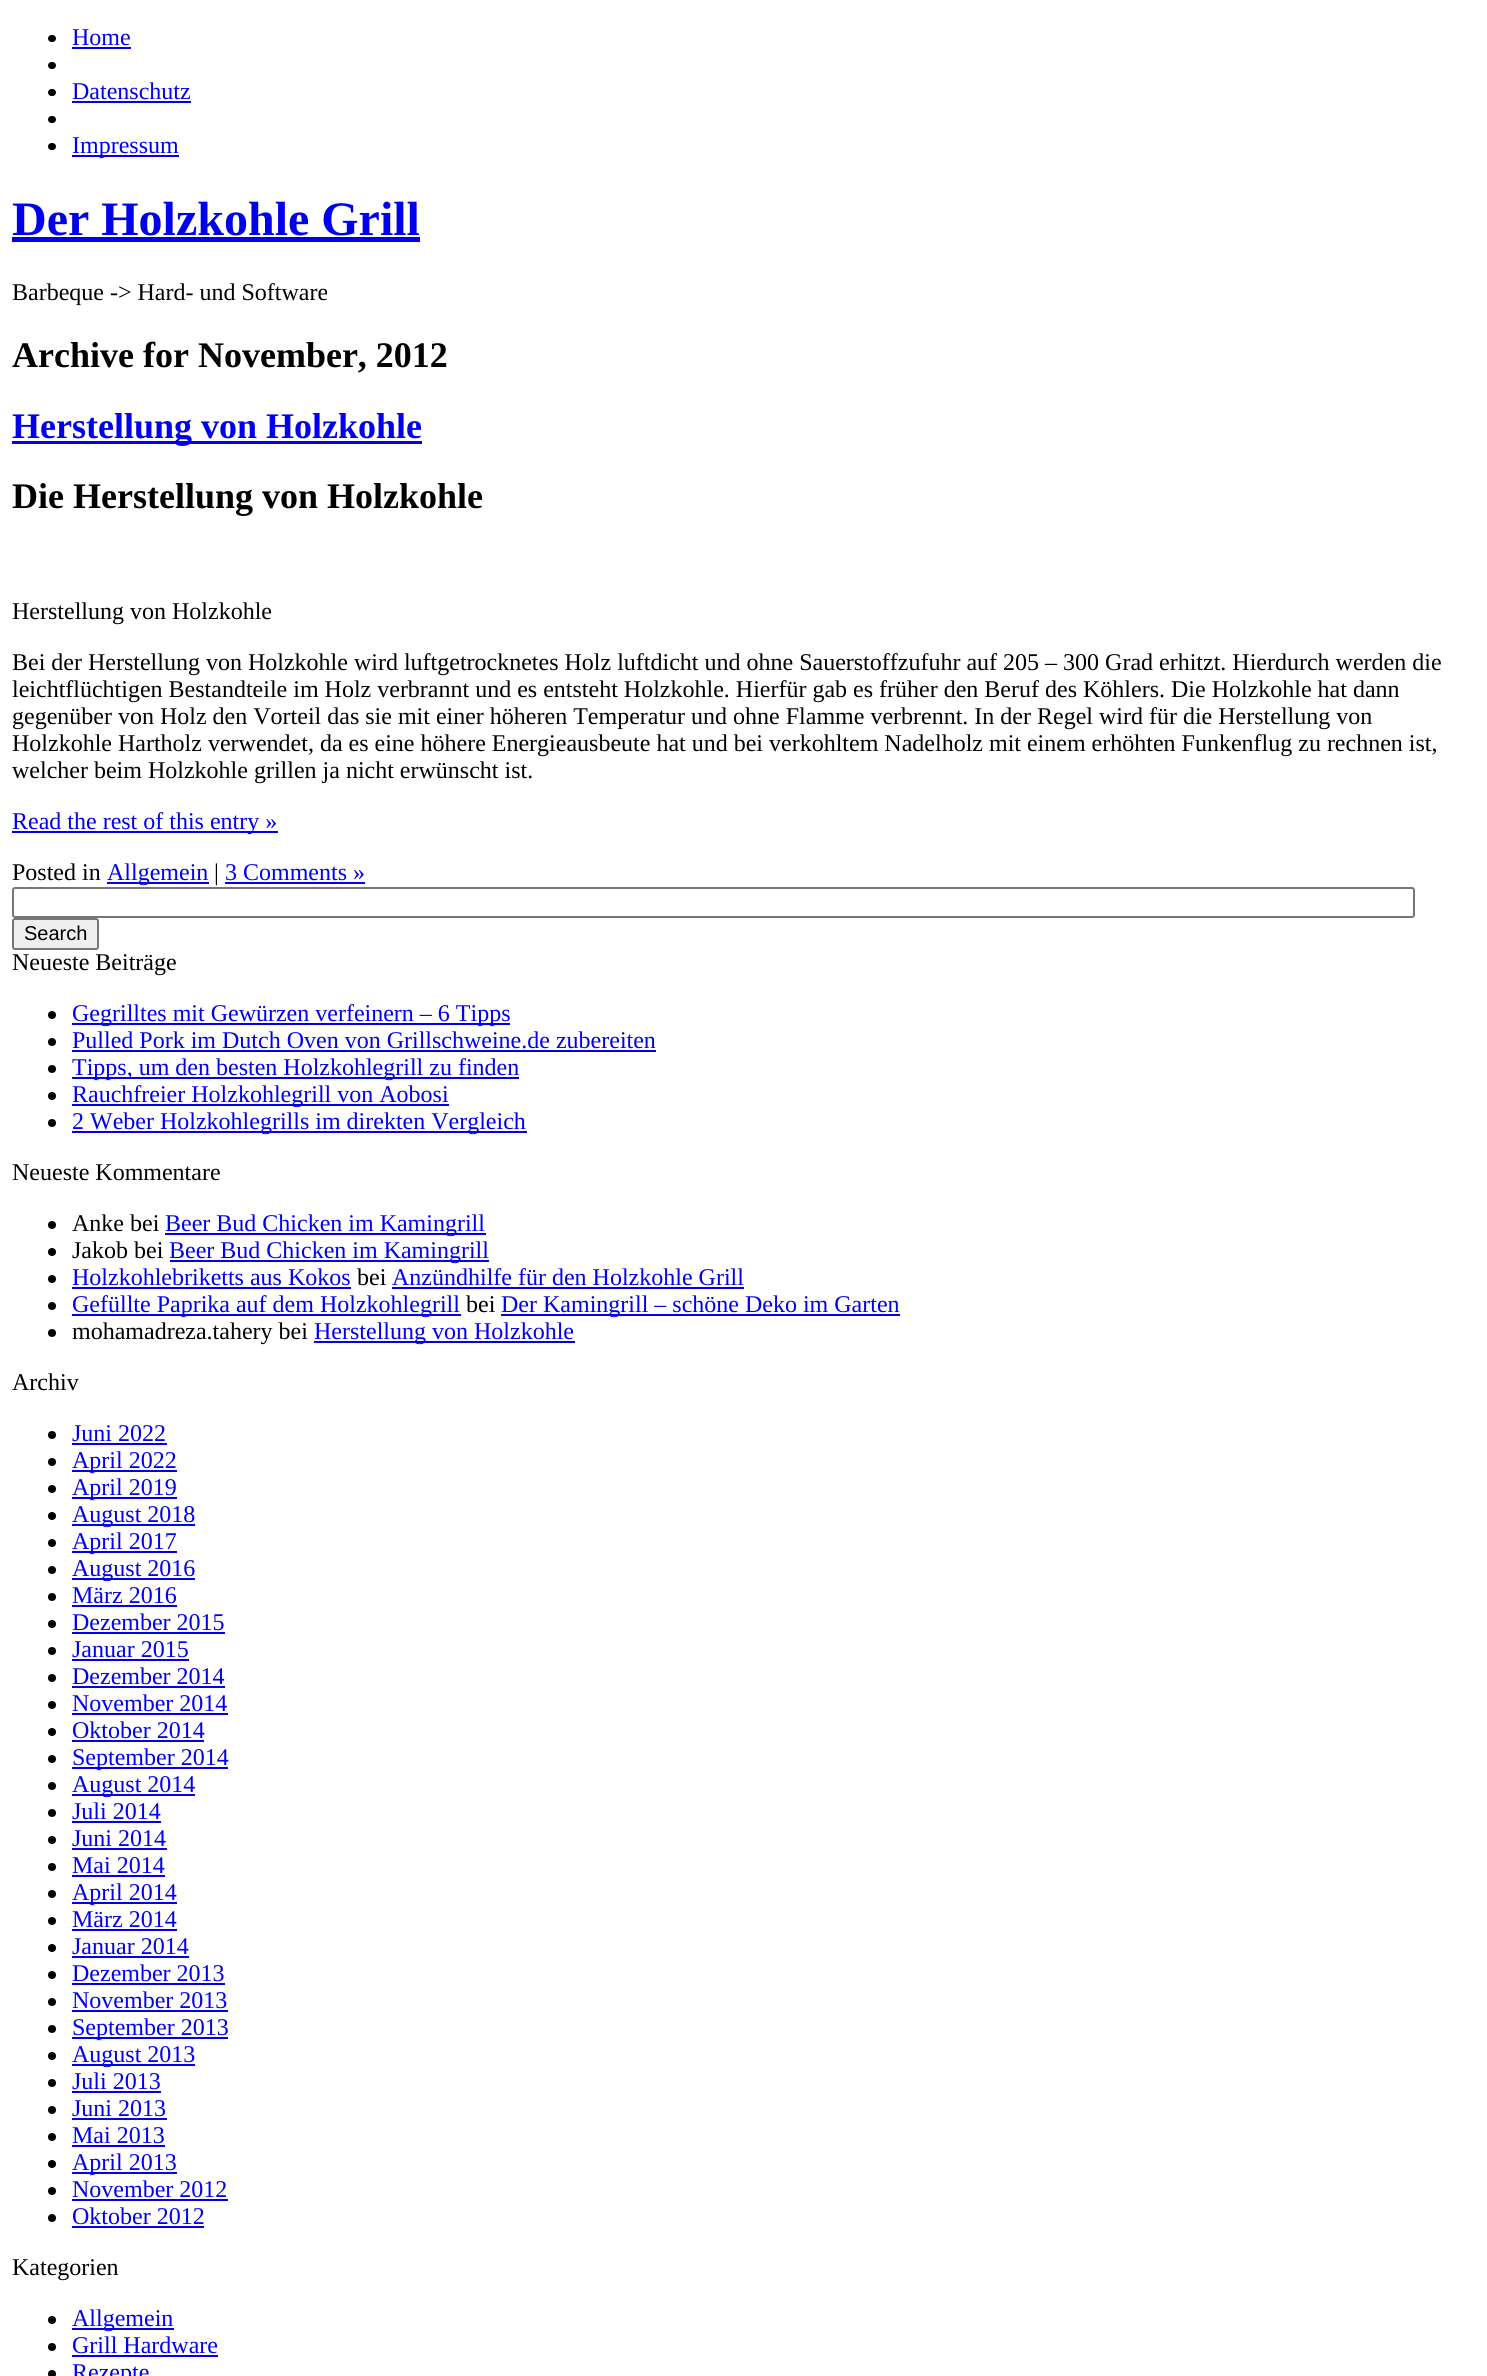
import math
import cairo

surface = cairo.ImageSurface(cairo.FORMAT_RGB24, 1487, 2376)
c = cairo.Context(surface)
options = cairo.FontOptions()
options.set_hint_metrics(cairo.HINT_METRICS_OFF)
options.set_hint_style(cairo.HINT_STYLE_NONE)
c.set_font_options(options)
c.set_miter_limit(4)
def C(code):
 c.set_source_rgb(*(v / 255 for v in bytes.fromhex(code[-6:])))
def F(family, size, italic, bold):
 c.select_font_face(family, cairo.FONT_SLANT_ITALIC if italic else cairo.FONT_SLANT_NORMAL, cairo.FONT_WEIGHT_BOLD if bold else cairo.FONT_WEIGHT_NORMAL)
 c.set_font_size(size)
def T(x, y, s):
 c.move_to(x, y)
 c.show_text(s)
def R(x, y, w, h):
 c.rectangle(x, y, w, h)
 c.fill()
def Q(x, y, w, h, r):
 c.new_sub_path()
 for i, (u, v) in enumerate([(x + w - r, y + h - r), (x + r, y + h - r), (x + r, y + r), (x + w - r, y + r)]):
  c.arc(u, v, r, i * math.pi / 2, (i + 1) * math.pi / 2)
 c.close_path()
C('ffffff')
c.paint()
C('000000')
Q(48,35,8,7,3.5)
c.fill()
F('Liberation Serif',24,0,0)
C('0000ee')
T(72,45,'Home')
R(72,47,59,2)
C('000000')
Q(48,62,8,7,3.5)
c.fill()
Q(48,89,8,7,3.5)
c.fill()
C('0000ee')
T(72,99,'Datenschutz')
R(72,101,119,2)
C('000000')
Q(48,116,8,7,3.5)
c.fill()
Q(48,143,8,7,3.5)
c.fill()
C('0000ee')
R(72,155,107,2)
T(72,153,'Impressum')
F('Liberation Serif',48,0,1)
T(12,235,'Der Holzkohle Grill')
R(12,237,408,5)
F('Liberation Serif',24,0,0)
C('000000')
T(12,300,'Barbeque -> Hard- und Software')
F('Liberation Serif',36,0,1)
T(12,367,'Archive for November, 2012')
C('0000ee')
R(12,441,410,3)
T(12,438,'Herstellung von Holzkohle')
C('000000')
T(12,508,'Die Herstellung von Holzkohle')
F('Liberation Serif',24,0,0)
T(12,619,'Herstellung von Holzkohle')
T(12,670,'Bei der Herstellung von Holzkohle wird luftgetrocknetes Holz luftdicht und ohne Sauerstoffzufuhr auf 205 – 300 Grad erhitzt. Hierdurch werden die')
T(12,697,'leichtflüchtigen Bestandteile im Holz verbrannt und es entsteht Holzkohle. Hierfür gab es früher den Beruf des Köhlers. Die Holzkohle hat dann')
T(12,724,'gegenüber von Holz den Vorteil das sie mit einer höheren Temperatur und ohne Flamme verbrennt. In der Regel wird für die Herstellung von')
T(12,751,'Holzkohle Hartholz verwendet, da es eine höhere Energieausbeute hat und bei verkohltem Nadelholz mit einem erhöhten Funkenflug zu rechnen ist,')
T(12,778,'welcher beim Holzkohle grillen ja nicht erwünscht ist.')
C('0000ee')
R(12,831,266,2)
T(12,829,'Read the rest of this entry »')
C('000000')
T(12,880,'Posted in')
C('0000ee')
R(107,882,102,2)
T(107,880,'Allgemein')
C('000000')
T(214,880,'|')
C('0000ee')
T(225,880,'3 Comments »')
R(225,882,140,2)
Q(13,888,1401,29,2)
C('767676')
c.stroke()
C('efefef')
Q(13,919,85,30,2)
c.fill_preserve()
C('767676')
c.stroke()
F('Liberation Sans',20,0,0)
C('000000')
T(24,940,'Search')
F('Liberation Serif',24,0,0)
T(12,970,'Neueste Beiträge')
c.new_path()
c.arc(52,1015,4,0,2 * math.pi)
c.fill()
C('0000ee')
R(72,1023,438,2)
T(72,1021,'Gegrilltes mit Gewürzen verfeinern – 6 Tipps')
C('000000')
c.new_path()
c.arc(52,1042,4,0,2 * math.pi)
c.fill()
C('0000ee')
T(72,1048,'Pulled Pork im Dutch Oven von Grillschweine.de zubereiten')
R(72,1050,584,2)
C('000000')
c.new_path()
c.arc(52,1069,4,0,2 * math.pi)
c.fill()
C('0000ee')
R(72,1077,447,2)
T(72,1075,'Tipps, um den besten Holzkohlegrill zu finden')
C('000000')
c.new_path()
c.arc(52,1096,4,0,2 * math.pi)
c.fill()
C('0000ee')
R(72,1104,377,2)
T(72,1102,'Rauchfreier Holzkohlegrill von Aobosi')
C('000000')
c.new_path()
c.arc(52,1123,4,0,2 * math.pi)
c.fill()
C('0000ee')
R(72,1131,455,2)
T(72,1129,'2 Weber Holzkohlegrills im direkten Vergleich')
C('000000')
T(12,1180,'Neueste Kommentare')
c.new_path()
c.arc(52,1225,4,0,2 * math.pi)
c.fill()
T(72,1231,'Anke bei')
C('0000ee')
R(165,1233,321,2)
T(165,1231,'Beer Bud Chicken im Kamingrill')
C('000000')
c.new_path()
c.arc(52,1252,4,0,2 * math.pi)
c.fill()
T(72,1258,'Jakob bei')
C('0000ee')
R(170,1260,319,2)
T(169,1258,'Beer Bud Chicken im Kamingrill')
C('000000')
c.new_path()
c.arc(52,1279,4,0,2 * math.pi)
c.fill()
C('0000ee')
T(72,1285,'Holzkohlebriketts aus Kokos')
R(72,1287,279,2)
C('000000')
T(357,1285,'bei')
C('0000ee')
T(392,1285,'Anzündhilfe für den Holzkohle Grill')
R(392,1287,352,2)
C('000000')
c.new_path()
c.arc(52,1306,4,0,2 * math.pi)
c.fill()
C('0000ee')
R(72,1314,389,2)
T(72,1312,'Gefüllte Paprika auf dem Holzkohlegrill')
C('000000')
T(466,1312,'bei')
C('0000ee')
R(501,1314,399,2)
T(501,1312,'Der Kamingrill – schöne Deko im Garten')
C('000000')
c.new_path()
c.arc(52,1333,4,0,2 * math.pi)
c.fill()
T(72,1339,'mohamadreza.tahery bei')
C('0000ee')
R(314,1341,261,2)
T(314,1339,'Herstellung von Holzkohle')
C('000000')
T(12,1390,'Archiv')
c.new_path()
c.arc(52,1435,4,0,2 * math.pi)
c.fill()
C('0000ee')
T(72,1441,'Juni 2022')
R(72,1443,95,2)
C('000000')
c.new_path()
c.arc(52,1462,4,0,2 * math.pi)
c.fill()
C('0000ee')
R(72,1470,105,2)
T(72,1468,'April 2022')
C('000000')
c.new_path()
c.arc(52,1489,4,0,2 * math.pi)
c.fill()
C('0000ee')
R(72,1497,105,2)
T(72,1495,'April 2019')
C('000000')
c.new_path()
c.arc(52,1516,4,0,2 * math.pi)
c.fill()
C('0000ee')
R(72,1524,123,2)
T(72,1522,'August 2018')
C('000000')
c.new_path()
c.arc(52,1543,4,0,2 * math.pi)
c.fill()
C('0000ee')
R(72,1551,105,2)
T(72,1549,'April 2017')
C('000000')
c.new_path()
c.arc(52,1570,4,0,2 * math.pi)
c.fill()
C('0000ee')
R(72,1578,123,2)
T(72,1576,'August 2016')
C('000000')
c.new_path()
c.arc(52,1597,4,0,2 * math.pi)
c.fill()
C('0000ee')
T(72,1603,'März 2016')
R(72,1605,105,2)
C('000000')
c.new_path()
c.arc(52,1624,4,0,2 * math.pi)
c.fill()
C('0000ee')
T(72,1630,'Dezember 2015')
R(72,1632,153,2)
C('000000')
c.new_path()
c.arc(52,1651,4,0,2 * math.pi)
c.fill()
C('0000ee')
T(72,1657,'Januar 2015')
R(72,1659,117,2)
C('000000')
c.new_path()
c.arc(52,1678,4,0,2 * math.pi)
c.fill()
C('0000ee')
T(72,1684,'Dezember 2014')
R(72,1686,153,2)
C('000000')
c.new_path()
c.arc(52,1705,4,0,2 * math.pi)
c.fill()
C('0000ee')
T(72,1711,'November 2014')
R(72,1713,156,2)
C('000000')
c.new_path()
c.arc(52,1732,4,0,2 * math.pi)
c.fill()
C('0000ee')
T(72,1738,'Oktober 2014')
R(72,1740,132,2)
C('000000')
c.new_path()
c.arc(52,1759,4,0,2 * math.pi)
c.fill()
C('0000ee')
R(72,1767,156,2)
T(72,1765,'September 2014')
C('000000')
c.new_path()
c.arc(52,1786,4,0,2 * math.pi)
c.fill()
C('0000ee')
R(72,1794,123,2)
T(72,1792,'August 2014')
C('000000')
c.new_path()
c.arc(52,1813,4,0,2 * math.pi)
c.fill()
C('0000ee')
T(72,1819,'Juli 2014')
R(72,1821,89,2)
C('000000')
c.new_path()
c.arc(52,1840,4,0,2 * math.pi)
c.fill()
C('0000ee')
T(72,1846,'Juni 2014')
R(72,1848,95,2)
C('000000')
c.new_path()
c.arc(52,1867,4,0,2 * math.pi)
c.fill()
C('0000ee')
T(72,1873,'Mai 2014')
R(72,1875,93,2)
C('000000')
c.new_path()
c.arc(52,1894,4,0,2 * math.pi)
c.fill()
C('0000ee')
R(72,1902,105,2)
T(72,1900,'April 2014')
C('000000')
c.new_path()
c.arc(52,1921,4,0,2 * math.pi)
c.fill()
C('0000ee')
T(72,1927,'März 2014')
R(72,1929,105,2)
C('000000')
c.new_path()
c.arc(52,1948,4,0,2 * math.pi)
c.fill()
C('0000ee')
T(72,1954,'Januar 2014')
R(72,1956,117,2)
C('000000')
c.new_path()
c.arc(52,1975,4,0,2 * math.pi)
c.fill()
C('0000ee')
T(72,1981,'Dezember 2013')
R(72,1983,153,2)
C('000000')
c.new_path()
c.arc(52,2002,4,0,2 * math.pi)
c.fill()
C('0000ee')
T(72,2008,'November 2013')
R(72,2010,156,2)
C('000000')
c.new_path()
c.arc(52,2029,4,0,2 * math.pi)
c.fill()
C('0000ee')
R(72,2037,156,2)
T(72,2035,'September 2013')
C('000000')
c.new_path()
c.arc(52,2056,4,0,2 * math.pi)
c.fill()
C('0000ee')
R(72,2064,123,2)
T(72,2062,'August 2013')
C('000000')
c.new_path()
c.arc(52,2083,4,0,2 * math.pi)
c.fill()
C('0000ee')
T(72,2089,'Juli 2013')
R(72,2091,89,2)
C('000000')
c.new_path()
c.arc(52,2110,4,0,2 * math.pi)
c.fill()
C('0000ee')
T(72,2116,'Juni 2013')
R(72,2118,95,2)
C('000000')
c.new_path()
c.arc(52,2137,4,0,2 * math.pi)
c.fill()
C('0000ee')
T(72,2143,'Mai 2013')
R(72,2145,93,2)
C('000000')
c.new_path()
c.arc(52,2164,4,0,2 * math.pi)
c.fill()
C('0000ee')
R(72,2172,105,2)
T(72,2170,'April 2013')
C('000000')
c.new_path()
c.arc(52,2191,4,0,2 * math.pi)
c.fill()
C('0000ee')
T(72,2197,'November 2012')
R(72,2199,156,2)
C('000000')
c.new_path()
c.arc(52,2218,4,0,2 * math.pi)
c.fill()
C('0000ee')
T(72,2224,'Oktober 2012')
R(72,2226,132,2)
C('000000')
T(12,2275,'Kategorien')
c.new_path()
c.arc(52,2320,4,0,2 * math.pi)
c.fill()
C('0000ee')
R(72,2328,102,2)
T(72,2326,'Allgemein')
C('000000')
c.new_path()
c.arc(52,2347,4,0,2 * math.pi)
c.fill()
C('0000ee')
T(72,2353,'Grill Hardware')
R(72,2355,146,2)
C('000000')
c.new_path()
c.arc(52,2374,4,0,2 * math.pi)
c.fill()
C('0000ee')
T(72,2380,'Rezepte')
surface.write_to_png('o.png')
